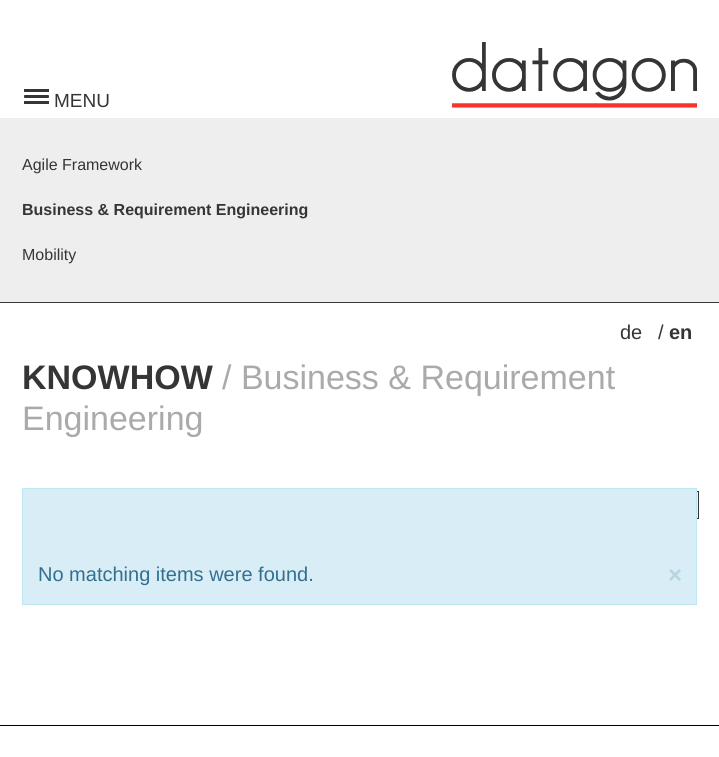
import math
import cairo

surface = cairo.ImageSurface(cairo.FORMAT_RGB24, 719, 757)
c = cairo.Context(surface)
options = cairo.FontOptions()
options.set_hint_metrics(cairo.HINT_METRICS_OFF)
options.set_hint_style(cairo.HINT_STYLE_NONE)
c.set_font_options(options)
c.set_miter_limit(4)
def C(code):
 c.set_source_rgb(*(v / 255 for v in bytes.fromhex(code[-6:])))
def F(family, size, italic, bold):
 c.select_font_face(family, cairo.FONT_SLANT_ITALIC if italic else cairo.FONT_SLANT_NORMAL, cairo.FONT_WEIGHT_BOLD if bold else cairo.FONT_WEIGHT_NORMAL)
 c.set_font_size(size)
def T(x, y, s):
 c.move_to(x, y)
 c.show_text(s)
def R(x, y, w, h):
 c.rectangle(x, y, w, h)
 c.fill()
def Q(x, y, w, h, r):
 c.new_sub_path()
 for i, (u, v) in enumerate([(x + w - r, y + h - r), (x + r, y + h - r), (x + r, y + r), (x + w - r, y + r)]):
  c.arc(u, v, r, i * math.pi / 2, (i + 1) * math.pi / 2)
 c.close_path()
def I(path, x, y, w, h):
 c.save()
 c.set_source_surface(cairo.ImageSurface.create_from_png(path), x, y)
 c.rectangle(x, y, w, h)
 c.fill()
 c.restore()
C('ffffff')
c.paint()
C('353535')
R(0,302,719,1)
Q(24,95,25,3,1)
c.fill()
R(24,89,25,3)
R(24,101,25,3)
F('Liberation Sans',19,0,0)
T(54,107,'MENU')
I('1.png',452,42,245,66)
C('eeeeee')
R(0,118,719,184)
F('Liberation Sans',16,0,0)
C('353535')
T(22,170,'Agile Framework')
F('Liberation Sans',16,0,1)
T(22,215,'Business & Requirement Engineering')
F('Liberation Sans',16,0,0)
T(22,260,'Mobility')
F('Liberation Sans',20,0,0)
T(620,339,'de')
T(658,339,'/')
F('Liberation Sans',20,0,1)
T(669,339,'en')
F('Liberation Sans',34,0,1)
T(22,389,'KNOWHOW')
F('Liberation Sans',34,0,0)
C('aaaaaa')
T(222,389,'/ Business & Requirement')
T(22,430,'Engineering')
C('eeeeee')
R(697,492,1,26)
c.rectangle(22.5,491.5,676,27)
C('353535')
c.set_line_width(1)
c.stroke()
C('d9edf7')
c.rectangle(22.5,488.5,674,116)
c.fill_preserve()
C('bce8f1')
c.stroke()
F('Liberation Sans',20,0,0)
C('31708f')
T(38,581,'No matching items were found.')
F('Liberation Sans',24,0,1)
C('b7d4e2')
T(668,583,'×')
C('000000')
R(0,725,719,1)
surface.write_to_png('o.png')
